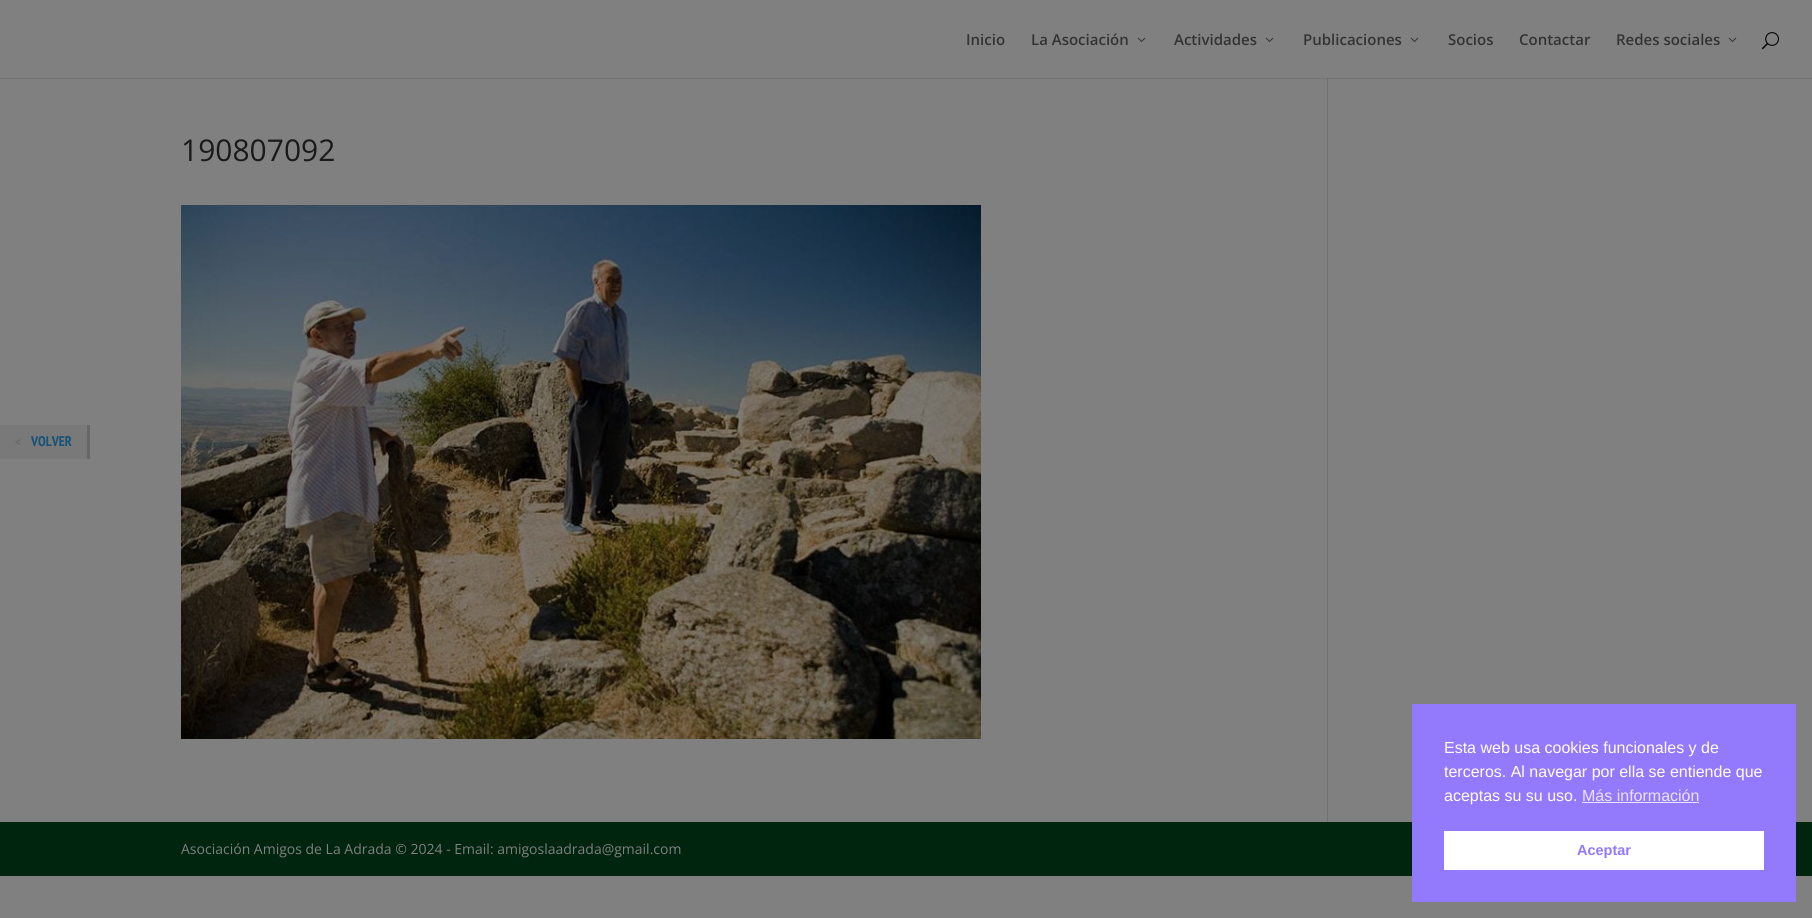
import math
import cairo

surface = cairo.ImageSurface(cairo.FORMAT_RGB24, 1812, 918)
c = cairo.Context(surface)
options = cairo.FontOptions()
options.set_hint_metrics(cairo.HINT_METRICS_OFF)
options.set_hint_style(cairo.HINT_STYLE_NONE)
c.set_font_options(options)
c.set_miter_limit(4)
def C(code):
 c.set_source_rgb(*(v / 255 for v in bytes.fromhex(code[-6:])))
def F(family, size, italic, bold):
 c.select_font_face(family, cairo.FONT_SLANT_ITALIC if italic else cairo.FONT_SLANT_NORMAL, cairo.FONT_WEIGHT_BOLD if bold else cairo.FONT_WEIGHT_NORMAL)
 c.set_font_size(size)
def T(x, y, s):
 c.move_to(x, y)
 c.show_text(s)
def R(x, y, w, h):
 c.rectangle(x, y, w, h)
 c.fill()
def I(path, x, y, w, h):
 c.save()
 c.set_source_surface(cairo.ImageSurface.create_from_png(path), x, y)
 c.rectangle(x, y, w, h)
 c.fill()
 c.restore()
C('808080')
c.paint()
C('737373')
R(0,78,1812,1)
C('797979')
R(0,425,87,34)
C('676767')
R(87,425,3,34)
F('Cabin',14,0,1)
T(15,446,'<')
F('PT Sans Narrow',14,0,1)
C('175279')
T(31,446,'VOLVER')
C('717171')
R(1327,77,1,745)
C('808080')
R(1327,77,1,1)
F('Open Sans SemiBold',15,0,0)
C('333333')
T(966,45,'Inicio')
T(1031,45,'La Asociación')
I('1.png',1137,37,9,5)
T(1174,45,'Actividades')
I('1.png',1265,37,9,5)
T(1303,45,'Publicaciones')
I('1.png',1410,37,9,5)
T(1448,45,'Socios')
T(1519,45,'Contactar')
T(1616,45,'Redes sociales')
I('1.png',1728,37,9,5)
I('2.png',1762,32,17,18)
F('Open Sans',30,0,0)
C('1a1a1a')
T(181,161,'190807092')
I('3.png',181,205,800,534)
C('666666')
R(1327,78,1,1)
C('00250e')
R(0,822,1812,54)
F('Open Sans',14,0,0)
C('808080')
T(181,854,'Asociación Amigos de La Adrada © 2024 - Email: amigoslaadrada@gmail.com')
C('937afc')
R(1412,704,384,198)
F('Liberation Sans',16,0,0)
C('ffffff')
T(1444,753,'Esta web usa cookies funcionales y de')
T(1444,777,'terceros. Al navegar por ella se entiende que')
T(1444,801,'aceptas su su uso.')
C('e9e4fe')
T(1582,801,'Más información')
R(1582,802,117,1)
C('ffffff')
R(1444,831,320,39)
F('Liberation Sans',14.5,0,1)
C('937afc')
T(1577,855,'Aceptar')
surface.write_to_png('o.png')
